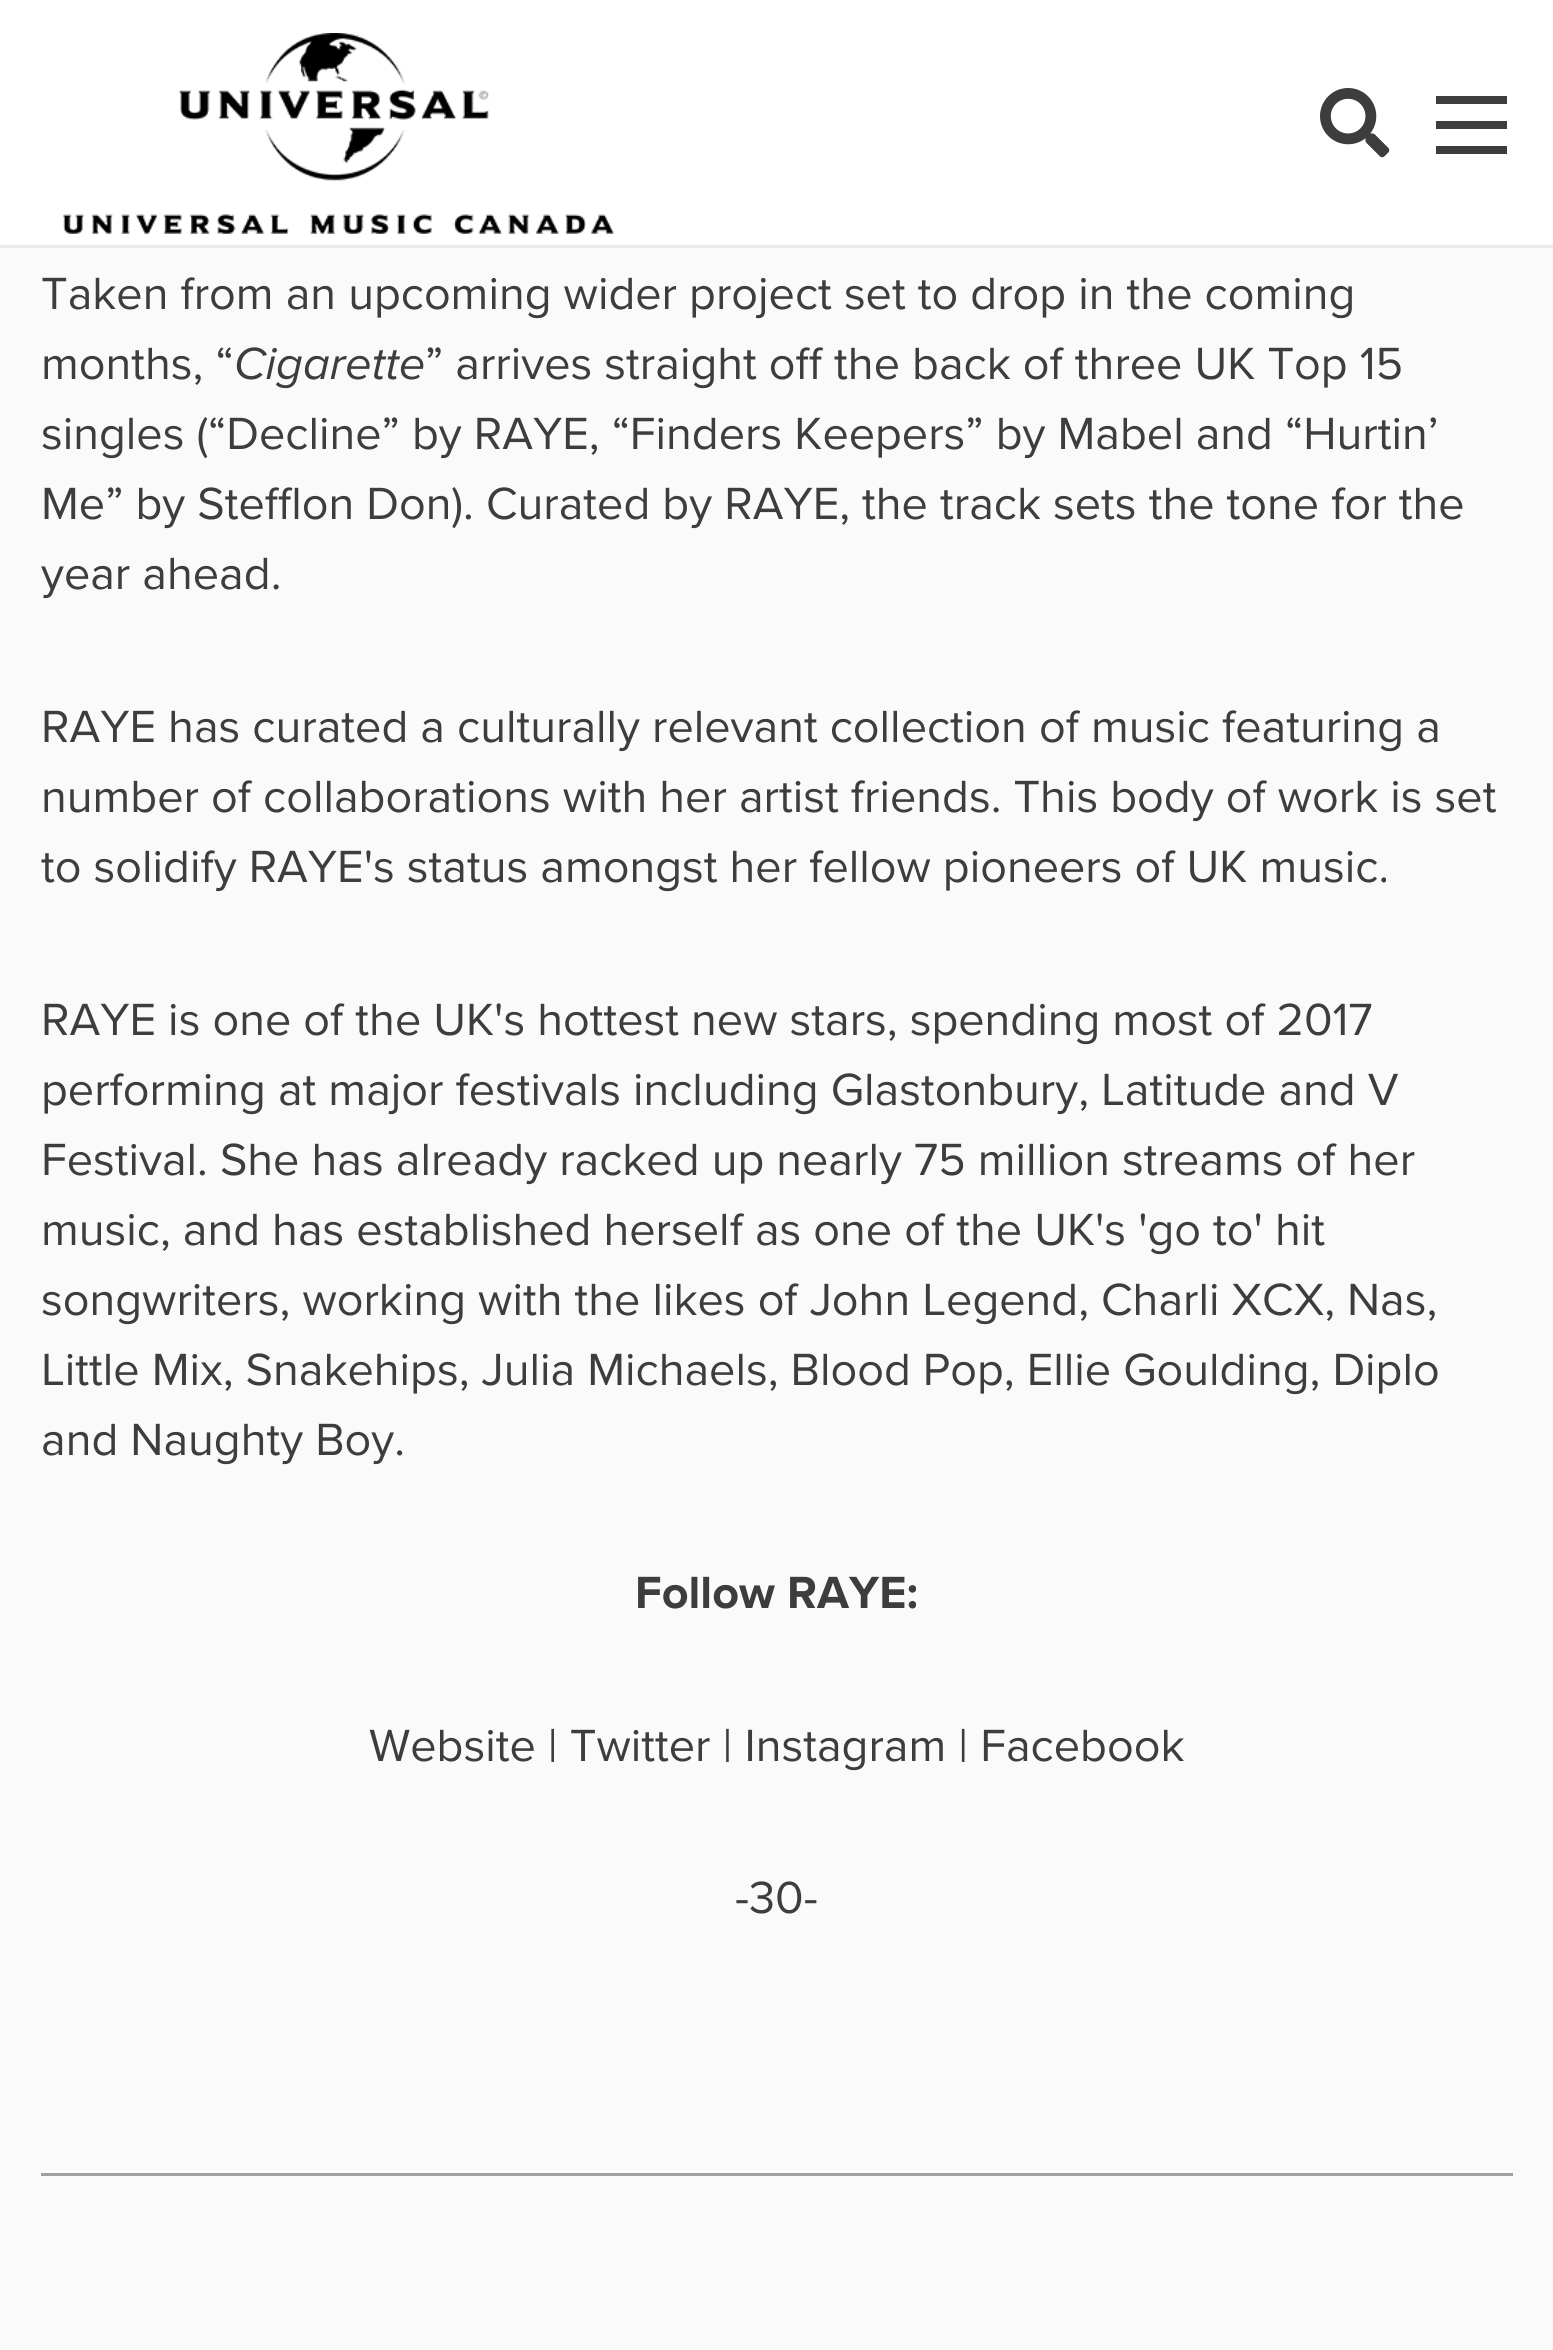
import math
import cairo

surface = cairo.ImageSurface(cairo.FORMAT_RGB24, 1553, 2350)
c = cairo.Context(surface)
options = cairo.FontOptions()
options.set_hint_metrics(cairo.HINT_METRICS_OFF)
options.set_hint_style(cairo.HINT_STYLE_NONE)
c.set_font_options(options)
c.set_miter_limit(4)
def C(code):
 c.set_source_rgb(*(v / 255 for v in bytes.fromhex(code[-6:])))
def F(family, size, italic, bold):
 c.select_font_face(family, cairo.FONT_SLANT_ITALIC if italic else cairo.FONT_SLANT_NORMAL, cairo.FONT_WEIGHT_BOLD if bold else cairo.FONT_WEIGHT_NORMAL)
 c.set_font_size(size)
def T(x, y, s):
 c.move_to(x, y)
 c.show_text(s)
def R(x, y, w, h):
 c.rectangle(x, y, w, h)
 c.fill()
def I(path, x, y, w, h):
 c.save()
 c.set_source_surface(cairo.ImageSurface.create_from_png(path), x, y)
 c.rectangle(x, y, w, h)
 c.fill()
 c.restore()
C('fafafa')
c.paint()
C('ffffff')
R(0,0,1553,245)
C('ebebeb')
R(0,245,1553,3)
I('1.png',63,33,551,201)
I('2.png',1320,88,70,70)
C('3d3d3d')
R(1436,121,71,8)
R(1436,96,71,8)
R(1436,146,71,8)
F('Proxima Nova',46.75,0,0)
T(41,309,'Taken from an upcoming wider project set to drop in the coming')
T(41,379,'months, “')
F('Proxima Nova',46.75,1,0)
T(234,379,'Cigarette')
F('Proxima Nova',46.75,0,0)
T(425,379,'” arrives straight off the back of three UK Top 15')
T(41,449,'singles (“Decline” by RAYE, “Finders Keepers” by Mabel and “Hurtin’')
T(41,519,'Me” by Stefflon Don). Curated by RAYE, the track sets the tone for the')
T(41,589,'year ahead.')
T(41,742,'RAYE has curated a culturally relevant collection of music featuring a')
T(41,812,'number of collaborations with her artist friends. This body of work is set')
T(41,882,'to solidify RAYE\'s status amongst her fellow pioneers of UK music.')
T(41,1035,'RAYE is one of the UK\'s hottest new stars, spending most of 2017')
T(41,1105,'performing at major festivals including Glastonbury, Latitude and V')
T(41,1175,'Festival. She has already racked up nearly 75 million streams of her')
T(41,1245,'music, and has established herself as one of the UK\'s \'go to\' hit')
T(41,1315,'songwriters, working with the likes of John Legend, Charli XCX, Nas,')
T(41,1385,'Little Mix, Snakehips, Julia Michaels, Blood Pop, Ellie Goulding, Diplo')
T(41,1455,'and Naughty Boy.')
F('Proxima Nova',46.75,0,1)
T(635,1608,'Follow RAYE:')
F('Proxima Nova',46.75,0,0)
T(369,1761,'Website | Twitter | Instagram | Facebook')
T(735,1913,'-30-')
C('a0a09f')
R(41,2173,1472,3)
surface.write_to_png('o.png')
